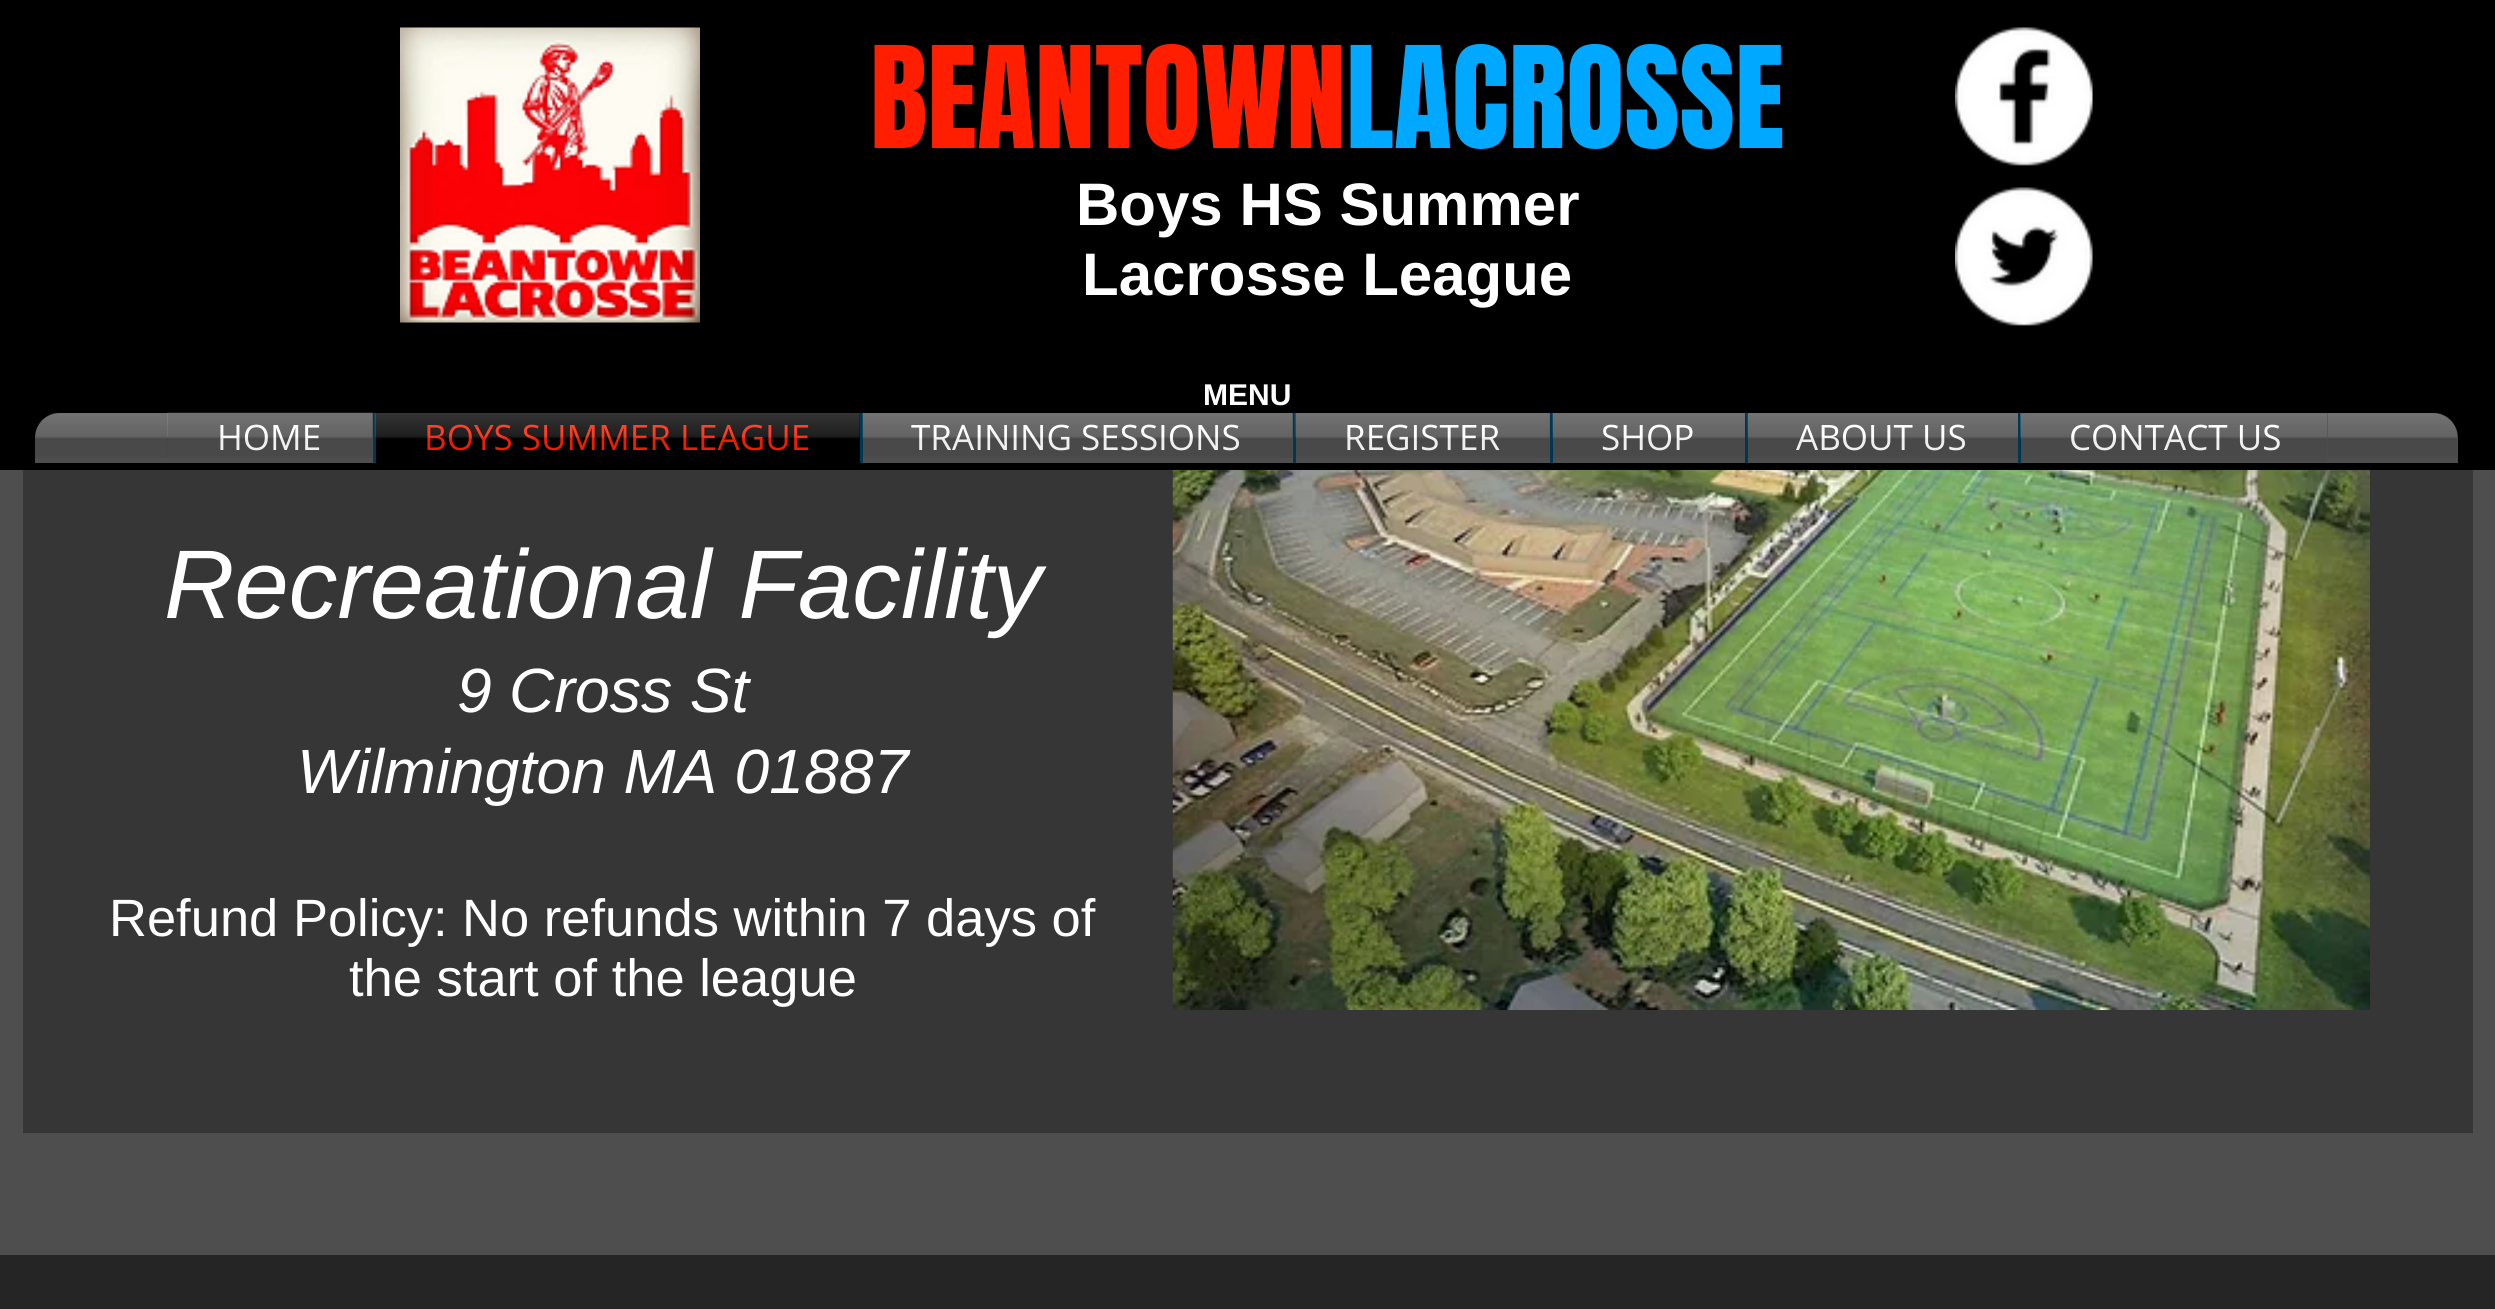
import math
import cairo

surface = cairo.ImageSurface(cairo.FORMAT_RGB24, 2495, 1309)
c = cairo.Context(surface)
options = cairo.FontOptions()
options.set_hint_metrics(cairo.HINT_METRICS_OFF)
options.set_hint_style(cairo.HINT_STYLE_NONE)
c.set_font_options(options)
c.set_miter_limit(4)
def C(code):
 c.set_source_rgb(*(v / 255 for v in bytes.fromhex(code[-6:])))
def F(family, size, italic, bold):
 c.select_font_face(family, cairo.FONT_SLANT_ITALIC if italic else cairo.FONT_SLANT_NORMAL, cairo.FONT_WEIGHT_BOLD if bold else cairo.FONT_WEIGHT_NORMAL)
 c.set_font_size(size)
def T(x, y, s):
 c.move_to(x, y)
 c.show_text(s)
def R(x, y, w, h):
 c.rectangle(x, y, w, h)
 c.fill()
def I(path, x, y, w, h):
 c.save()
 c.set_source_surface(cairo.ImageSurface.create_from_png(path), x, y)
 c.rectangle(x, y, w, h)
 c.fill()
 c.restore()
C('4e4e4e')
c.paint()
C('000000')
R(0,0,2495,470)
I('1.png',400,27,300,296)
F('Anton',120,0,0)
C('ff1f00')
T(870,148,'BEANTOWN')
C('00a9ff')
T(1346,148,'LACROSSE')
I('2.png',1955,27,138,139)
I('3.png',1955,187,138,139)
F('Liberation Sans',60,0,1)
C('ffffff')
T(1076,225,'Boys HS Summer')
T(1082,295,'Lacrosse League')
F('Liberation Sans',30,0,1)
T(1203,405,'MENU')
C('4e4e4e')
c.new_path()
c.move_to(60,413)
c.line_to(2433,413)
c.curve_to(2447,413,2458,424,2458,438)
c.line_to(2458,463)
c.line_to(35,463)
c.line_to(35,438)
c.curve_to(35,424,46,413,60,413)
c.close_path()
c.fill()
I('4.png',35,413,2422,45)
R(168,413,205,45)
F('Open Sans',35,0,0)
C('ffffff')
T(217,450,'HOME')
I('5.png',167,412,206,46)
C('000000')
R(376,413,484,50)
C('003854')
R(373,413,3,50)
C('ff1f00')
T(424,450,'BOYS SUMMER LEAGUE')
I('6.png',374,413,486,38)
C('4e4e4e')
R(863,413,430,45)
C('003854')
R(860,413,3,50)
C('ffffff')
T(911,450,'TRAINING SESSIONS')
I('7.png',862,413,431,45)
C('4e4e4e')
R(1296,413,254,45)
C('003854')
R(1293,413,3,50)
C('ffffff')
T(1344,450,'REGISTER')
I('8.png',1294,413,256,45)
C('4e4e4e')
R(1553,413,192,45)
C('003854')
R(1550,413,3,50)
C('ffffff')
T(1601,450,'SHOP')
I('9.png',1552,413,193,45)
C('4e4e4e')
R(1748,413,270,45)
C('003854')
R(1745,413,3,50)
C('ffffff')
T(1796,450,'ABOUT US')
I('10.png',1747,413,271,45)
C('4e4e4e')
R(2021,413,307,45)
C('003854')
R(2018,413,3,50)
C('ffffff')
T(2069,450,'CONTACT US')
I('11.png',2020,413,308,49)
C('363636')
R(23,470,2450,663)
F('Liberation Sans',97.5,1,0)
C('ffffff')
T(164,618,'Recreational Facility')
F('Liberation Sans',62.5,1,0)
T(457,712,'9 Cross St')
T(297,793,'Wilmington MA 01887')
I('12.png',1172,470,1198,540)
F('Liberation Sans',52.5,0,0)
T(109,936,'Refund Policy: No refunds within 7 days of')
T(349,996,'the start of the league')
C('252525')
R(0,1255,2495,54)
surface.write_to_png('o.png')
